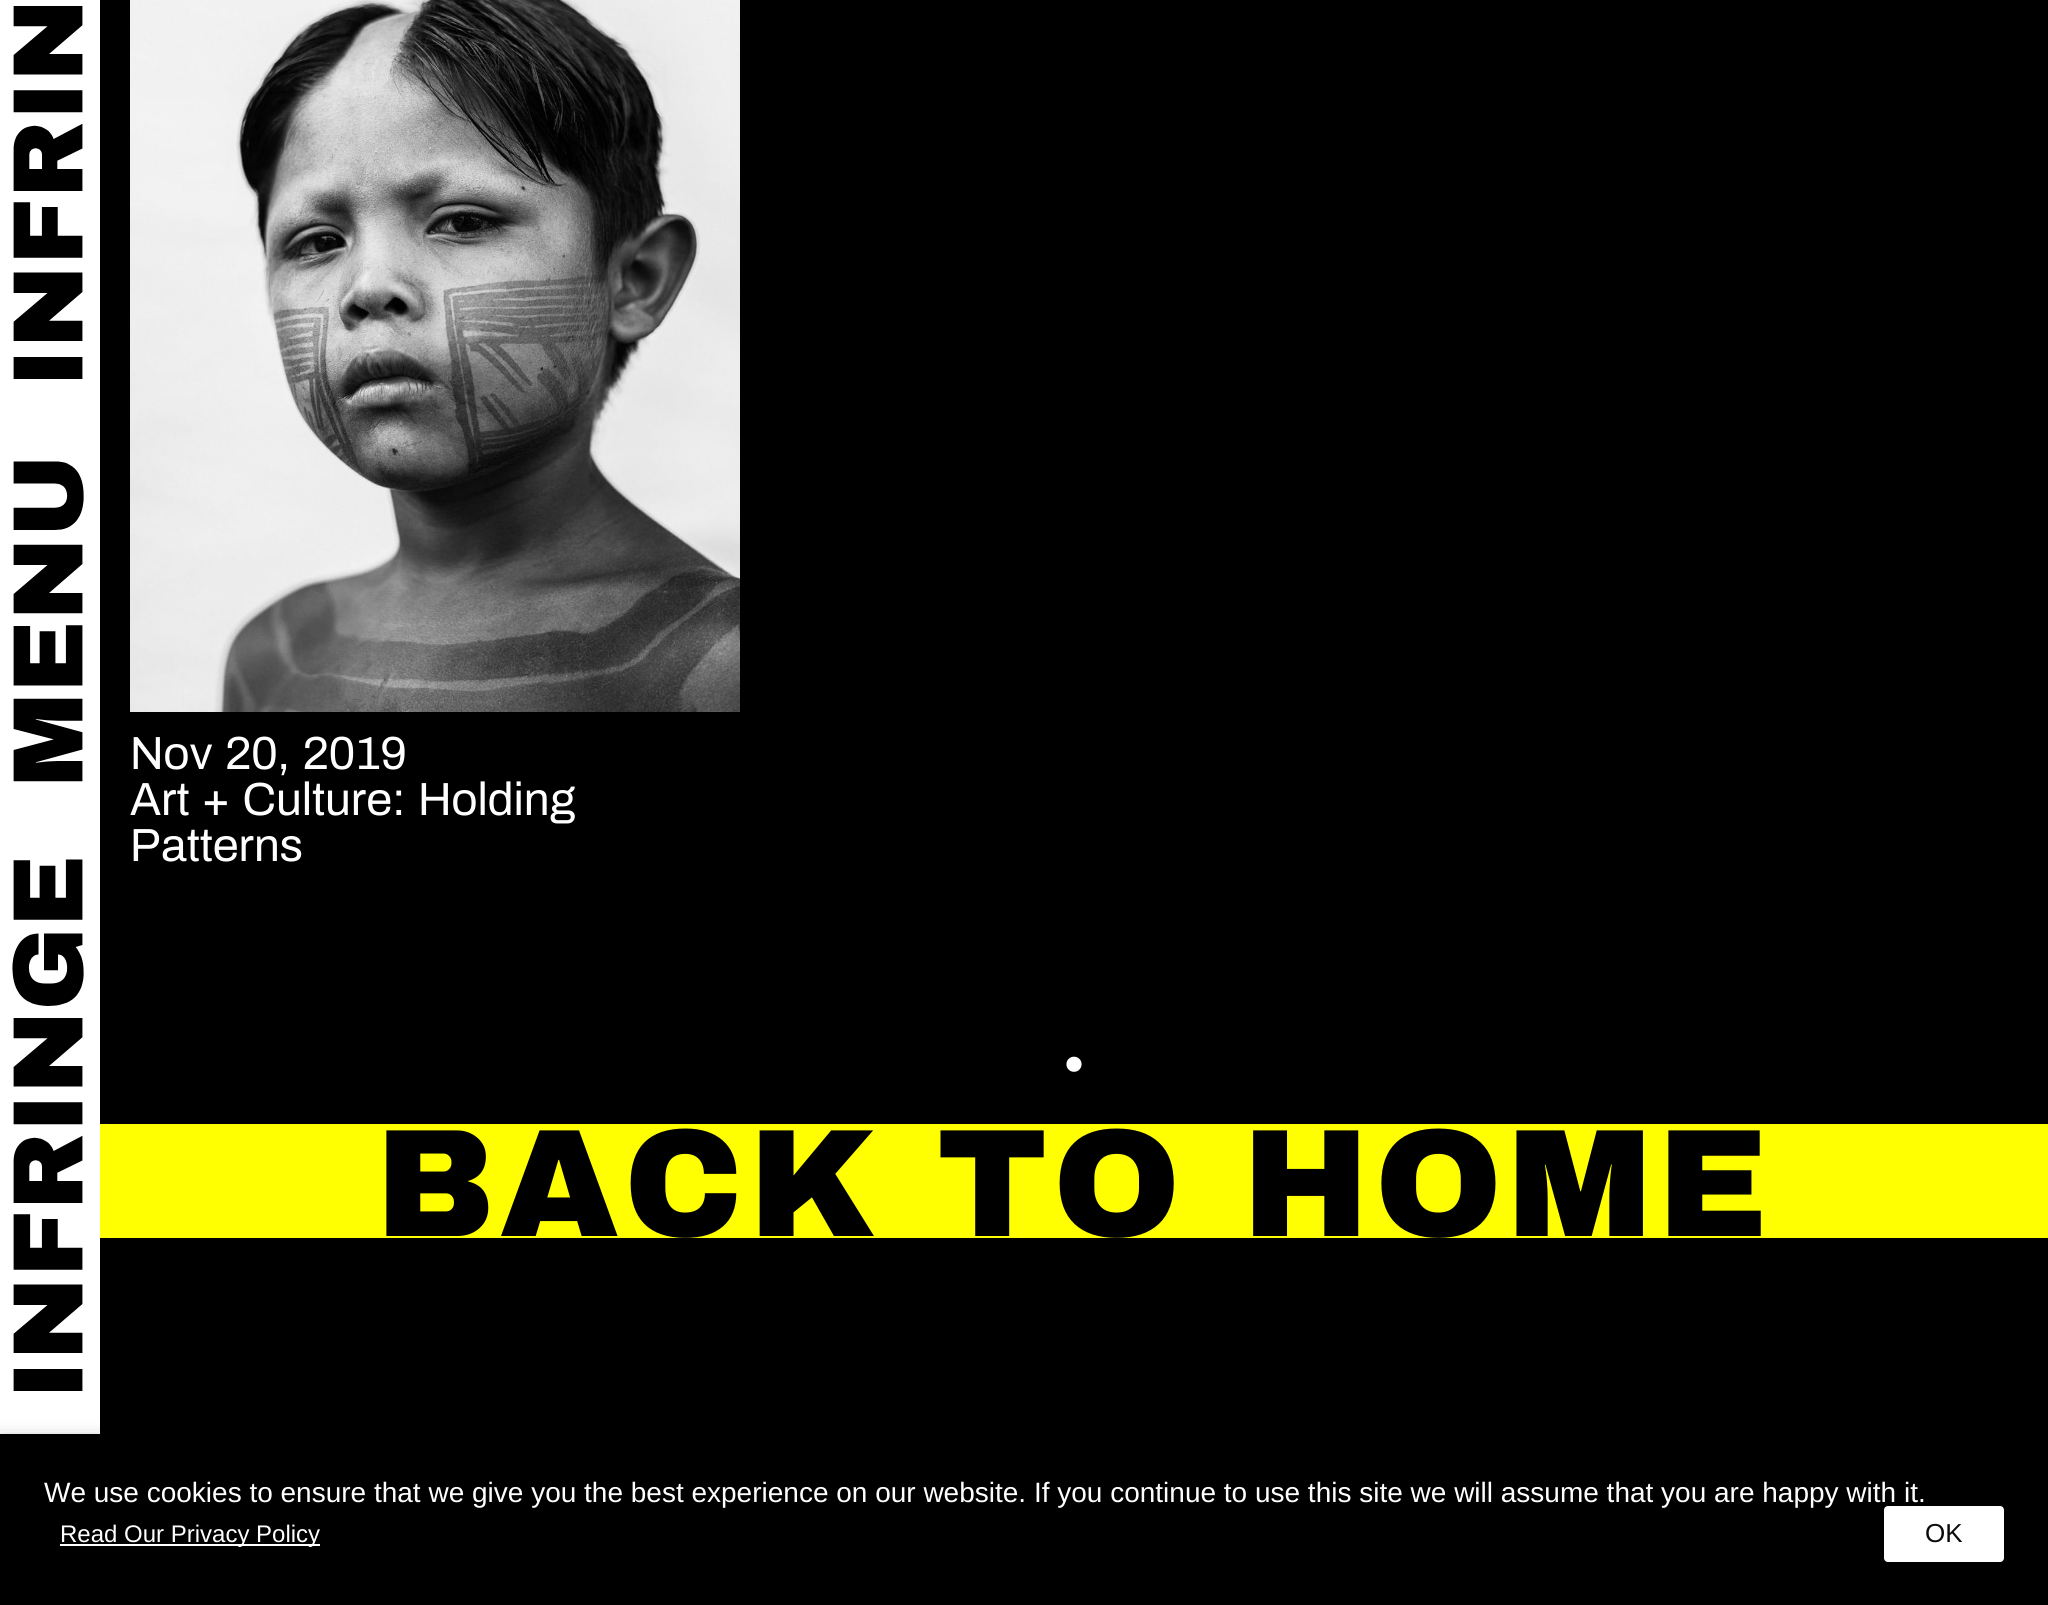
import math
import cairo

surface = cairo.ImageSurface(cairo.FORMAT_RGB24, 2048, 1605)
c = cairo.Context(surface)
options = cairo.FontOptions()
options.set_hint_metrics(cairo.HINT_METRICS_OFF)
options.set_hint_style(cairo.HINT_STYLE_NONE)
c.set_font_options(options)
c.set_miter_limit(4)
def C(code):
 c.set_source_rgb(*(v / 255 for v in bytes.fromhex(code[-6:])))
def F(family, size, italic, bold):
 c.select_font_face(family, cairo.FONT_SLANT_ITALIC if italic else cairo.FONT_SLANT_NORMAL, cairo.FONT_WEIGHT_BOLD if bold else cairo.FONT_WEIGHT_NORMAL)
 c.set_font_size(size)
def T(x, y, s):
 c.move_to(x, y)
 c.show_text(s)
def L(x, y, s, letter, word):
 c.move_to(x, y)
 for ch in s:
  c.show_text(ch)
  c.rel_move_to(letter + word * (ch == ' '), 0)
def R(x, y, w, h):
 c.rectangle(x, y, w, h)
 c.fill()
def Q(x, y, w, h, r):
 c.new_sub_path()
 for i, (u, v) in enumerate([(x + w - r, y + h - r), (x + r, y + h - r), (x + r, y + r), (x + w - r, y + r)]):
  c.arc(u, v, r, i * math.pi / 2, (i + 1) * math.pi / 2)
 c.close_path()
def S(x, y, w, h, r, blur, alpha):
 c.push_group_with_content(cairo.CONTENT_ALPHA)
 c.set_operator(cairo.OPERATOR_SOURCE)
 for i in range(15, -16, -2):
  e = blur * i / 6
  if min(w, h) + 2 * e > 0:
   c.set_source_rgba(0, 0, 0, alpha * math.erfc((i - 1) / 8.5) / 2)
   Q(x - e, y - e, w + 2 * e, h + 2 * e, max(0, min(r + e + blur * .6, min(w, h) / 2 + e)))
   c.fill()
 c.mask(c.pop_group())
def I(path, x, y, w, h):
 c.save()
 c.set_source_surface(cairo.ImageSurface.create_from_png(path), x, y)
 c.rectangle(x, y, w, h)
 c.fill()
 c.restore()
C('000000')
c.paint()
C('ffffff')
R(0,0,100,1434)
I('1.png',12,6,72,1385)
I('2.png',130,0,610,712)
F('Archivo',46.5,0,0)
T(130,769,'Nov 20, 2019')
T(130,815,'Art + Culture: Holding')
T(130,861,'Patterns')
F('Liberation Serif',128,0,0)
T(1058,1070,'.')
C('ffff01')
R(100,1124,1948,114)
F('Archivo Black Black',153.5,0,0)
C('000000')
L(375,1236,'BACK TO HOME',5,0)
C('000000')
S(0,1444,2048,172,0,10,.5)
F('Liberation Sans',28,0,0)
C('ffffff')
T(44,1502,'We use cookies to ensure that we give you the best experience on our website. If you continue to use this site we will assume that you are happy with it.')
R(60,1544,260,2)
F('Liberation Sans',24,0,0)
T(60,1542,'Read Our Privacy Policy')
Q(1884,1506,120,56,4)
c.fill()
F('Liberation Sans',26,0,0)
C('0a0a0a')
T(1925,1542,'OK')
surface.write_to_png('o.png')
